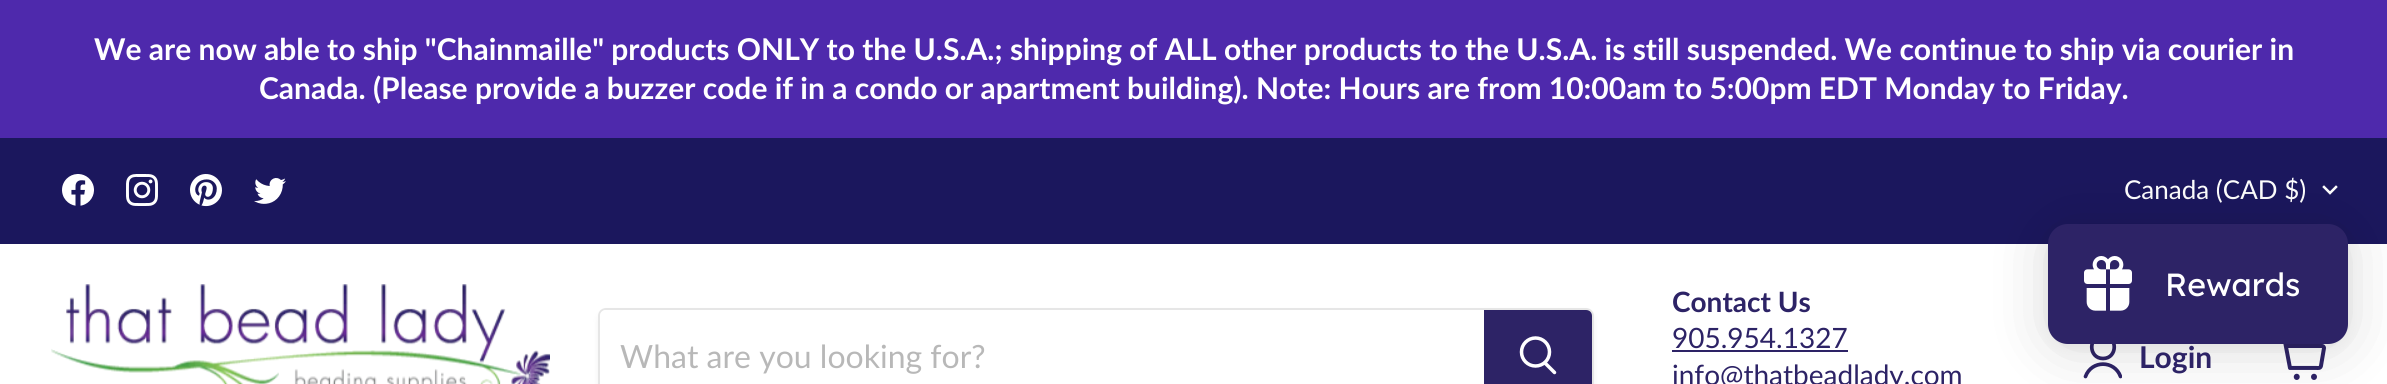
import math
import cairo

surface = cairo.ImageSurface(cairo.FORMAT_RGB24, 2387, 384)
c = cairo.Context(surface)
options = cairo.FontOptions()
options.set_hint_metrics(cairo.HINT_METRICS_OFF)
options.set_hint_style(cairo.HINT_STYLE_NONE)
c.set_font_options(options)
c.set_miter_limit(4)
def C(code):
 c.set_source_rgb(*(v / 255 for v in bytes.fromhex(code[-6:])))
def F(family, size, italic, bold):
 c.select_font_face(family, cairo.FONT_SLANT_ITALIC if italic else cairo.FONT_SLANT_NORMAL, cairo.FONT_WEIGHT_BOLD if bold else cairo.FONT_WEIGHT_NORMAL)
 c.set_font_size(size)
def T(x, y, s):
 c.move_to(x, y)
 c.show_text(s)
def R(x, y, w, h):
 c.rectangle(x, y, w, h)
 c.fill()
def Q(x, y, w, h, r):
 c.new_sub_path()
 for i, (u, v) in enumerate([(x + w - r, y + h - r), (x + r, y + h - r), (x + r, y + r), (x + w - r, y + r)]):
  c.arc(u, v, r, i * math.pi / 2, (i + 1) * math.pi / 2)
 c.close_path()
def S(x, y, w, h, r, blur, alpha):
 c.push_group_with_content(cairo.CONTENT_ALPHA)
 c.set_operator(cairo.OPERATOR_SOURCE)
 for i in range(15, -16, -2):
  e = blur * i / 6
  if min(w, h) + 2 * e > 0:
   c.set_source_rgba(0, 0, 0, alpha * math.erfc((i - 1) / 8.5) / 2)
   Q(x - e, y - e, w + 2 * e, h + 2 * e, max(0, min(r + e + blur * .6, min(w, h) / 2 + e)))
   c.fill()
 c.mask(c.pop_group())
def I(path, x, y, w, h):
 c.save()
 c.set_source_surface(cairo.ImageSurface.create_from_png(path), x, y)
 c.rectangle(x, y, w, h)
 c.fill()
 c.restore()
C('ffffff')
c.paint()
C('4e29ac')
R(0,0,2387,138)
F('Lato',30,0,1)
C('ffffff')
T(94,60,'We are now able to ship "Chainmaille" products ONLY to the U.S.A.; shipping of ALL other products to the U.S.A. is still suspended. We continue to ship via courier in')
T(259,99,'Canada. (Please provide a buzzer code if in a condo or apartment building). Note: Hours are from 10:00am to 5:00pm EDT Monday to Friday.')
C('1b175d')
R(0,138,2387,106)
I('1.png',62,174,32,32)
I('2.png',126,174,32,32)
I('3.png',190,174,32,33)
I('4.png',254,178,32,26)
F('Lato',26,0,0)
C('ffffff')
T(2124,199,'Canada (CAD $)')
c.new_path()
c.move_to(2330,193)
c.line_to(2336,187)
c.move_to(2330,193)
c.line_to(2324,187)
c.set_line_width(2.5)
c.set_line_cap(cairo.LINE_CAP_SQUARE)
c.stroke()
c.new_path()
c.move_to(2103,358.5)
c.curve_to(2118,358.5,2118,335.5,2103,335.5)
c.curve_to(2088,335.5,2088,358.5,2103,358.5)
c.close_path()
C('2d2366')
c.set_line_width(3.7)
c.set_line_cap(cairo.LINE_CAP_ROUND)
c.set_line_join(cairo.LINE_JOIN_ROUND)
c.stroke()
c.save()
c.rectangle(2082,332,40,48)
c.clip()
c.new_path()
c.move_to(2120.5,376.5)
c.curve_to(2114.5,360,2091.5,360,2085.5,376.5)
c.stroke()
c.restore()
I('7.png',2283,344,43,36)
C('000000')
S(2048,228,300,120,20,30,.15)
S(2048,226,300,120,20,6,.05)
C('2d2366')
Q(2048,224,300,120,20)
c.fill()
I('5.png',2084,256,48,55)
F('Lexend',32,0,0)
C('ffffff')
T(2165,296,'Rewards')
I('6.png',51,284,499,100)
C('808080')
S(598,312,996,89,8,3,.11)
Q(599,309,994,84,7)
C('e6e6e6')
c.set_line_width(2)
c.set_line_cap(cairo.LINE_CAP_BUTT)
c.set_line_join(cairo.LINE_JOIN_MITER)
c.stroke()
C('ffffff')
c.new_path()
c.move_to(606,310)
c.line_to(1484,310)
c.line_to(1484,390)
c.line_to(606,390)
c.curve_to(602.5,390,600,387.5,600,384)
c.line_to(600,316)
c.curve_to(600,312.5,602.5,310,606,310)
c.close_path()
c.fill()
F('Lato',32,0,0)
C('b8b8b8')
T(620,368,'What are you looking for?')
C('2d2366')
c.new_path()
c.move_to(1485,311)
c.line_to(1586,311)
c.curve_to(1589,311,1591,313,1591,316)
c.line_to(1591,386)
c.curve_to(1591,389,1589,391,1586,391)
c.line_to(1485,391)
c.close_path()
c.fill_preserve()
c.stroke()
c.new_path()
c.move_to(1554.5,372.5)
c.line_to(1545,363)
C('ffffff')
c.set_line_width(3.5)
c.set_line_cap(cairo.LINE_CAP_ROUND)
c.stroke()
c.arc(1535.5,352,14,0,2 * math.pi)
c.set_line_cap(cairo.LINE_CAP_BUTT)
c.stroke()
F('Lato',28,0,1)
C('2d2366')
T(1672,312,'Contact Us')
F('Lato',28,0,0)
T(1672,348,'905.954.1327')
R(1672,350,176,2)
T(1672,385,'info@thatbeadlady.com')
F('Lato',30,0,1)
T(2139,368,'Login')
surface.write_to_png('o.png')
